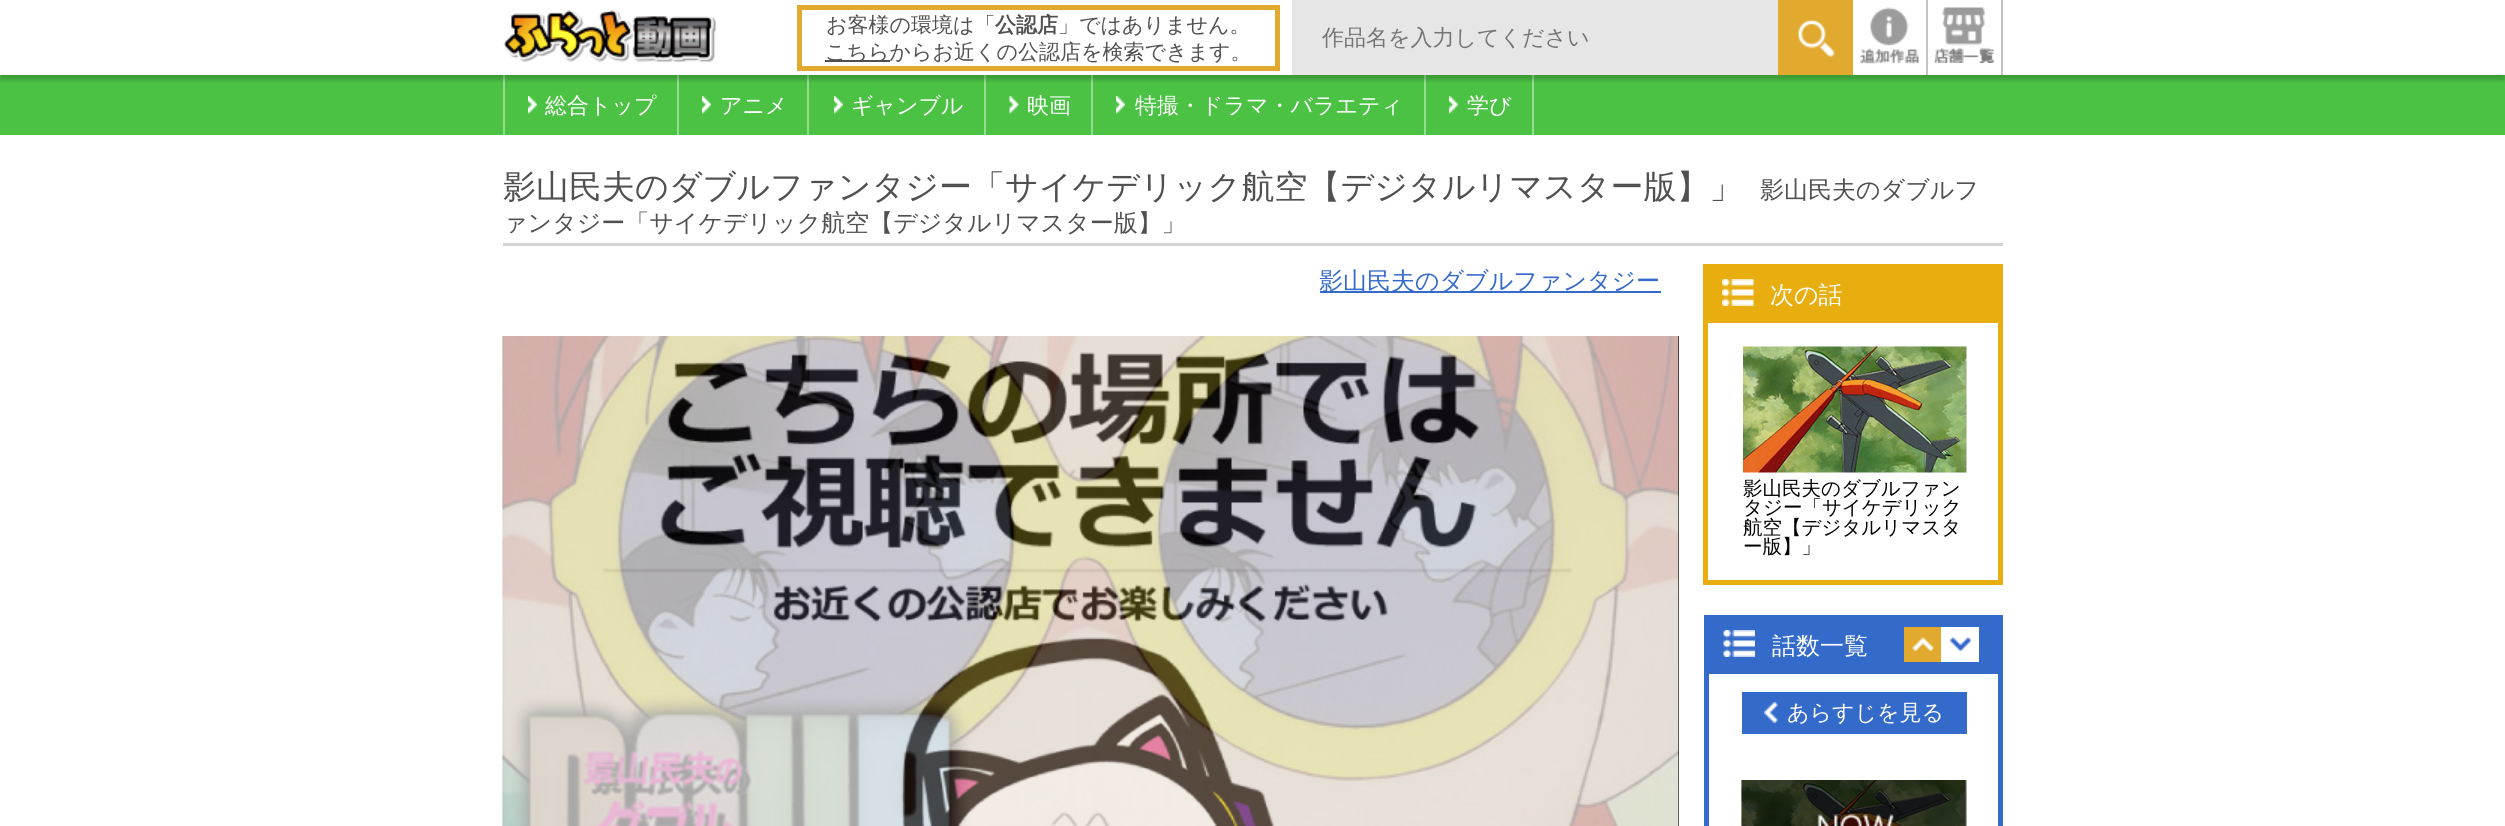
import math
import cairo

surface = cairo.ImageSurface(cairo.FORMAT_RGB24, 2505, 826)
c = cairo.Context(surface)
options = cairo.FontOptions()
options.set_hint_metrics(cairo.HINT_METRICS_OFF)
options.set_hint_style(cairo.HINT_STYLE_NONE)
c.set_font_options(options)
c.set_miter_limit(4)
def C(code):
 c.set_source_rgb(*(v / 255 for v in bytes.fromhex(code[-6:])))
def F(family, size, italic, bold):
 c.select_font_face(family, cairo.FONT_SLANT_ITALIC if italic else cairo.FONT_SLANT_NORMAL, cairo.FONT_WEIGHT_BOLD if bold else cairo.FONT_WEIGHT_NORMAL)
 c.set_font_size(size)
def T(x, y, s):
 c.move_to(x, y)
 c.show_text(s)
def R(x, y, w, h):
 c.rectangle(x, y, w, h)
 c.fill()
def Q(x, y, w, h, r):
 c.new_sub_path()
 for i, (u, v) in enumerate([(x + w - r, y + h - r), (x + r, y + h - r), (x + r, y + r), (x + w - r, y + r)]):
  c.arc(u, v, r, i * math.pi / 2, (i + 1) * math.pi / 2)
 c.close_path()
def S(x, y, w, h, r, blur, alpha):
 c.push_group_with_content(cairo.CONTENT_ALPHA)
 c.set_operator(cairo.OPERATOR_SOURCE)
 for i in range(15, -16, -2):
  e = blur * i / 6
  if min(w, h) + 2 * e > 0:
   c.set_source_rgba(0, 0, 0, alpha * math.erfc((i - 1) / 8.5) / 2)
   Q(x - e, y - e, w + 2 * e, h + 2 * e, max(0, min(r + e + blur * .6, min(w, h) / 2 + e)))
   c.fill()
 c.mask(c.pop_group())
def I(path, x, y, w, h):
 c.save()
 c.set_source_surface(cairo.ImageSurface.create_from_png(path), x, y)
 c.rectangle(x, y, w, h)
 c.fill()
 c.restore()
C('ffffff')
c.paint()
C('4bc244')
R(0,75,2505,60)
C('95db91')
R(503,75,2,60)
R(677,75,2,60)
R(807,75,2,60)
R(984,75,2,60)
R(1091,75,2,60)
R(1424,75,2,60)
R(1532,75,2,60)
c.save()
c.rectangle(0,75,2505,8)
c.clip()
C('000000')
S(0,5,2505,75,0,2,.2)
c.restore()
I('1.png',503,10,213,52)
c.rectangle(799.5,7.5,478,61)
C('e1a92d')
c.set_line_width(5)
c.stroke()
F('WenQuanYi Zen Hei Medium',21,0,0)
C('505050')
T(826,32,'お客様の環境は「')
F('WenQuanYi Zen Hei',21,0,1)
T(995,32,'公認店')
F('WenQuanYi Zen Hei Medium',21,0,0)
T(1058,32,'」ではありません。')
R(825,60,65,2)
T(825,59,'こちらからお近くの公認店を検索できます。')
C('e6e6e6')
R(1292,0,486,75)
F('WenQuanYi Zen Hei Medium',22,0,0)
C('757575')
T(1322,45,'作品名を入力してください')
C('e1a92d')
R(1778,0,75,75)
I('2.png',1798,19,37,38)
C('c3c3c3')
R(1926,0,2,75)
I('3.png',1860,7,59,57)
R(2001,0,2,75)
I('4.png',1933,7,62,56)
I('5.png',528,96,9,18)
C('ffffff')
T(545,113,'総合トップ')
I('5.png',702,96,9,18)
T(720,113,'アニメ')
I('6.png',834,96,9,18)
T(851,113,'ギャンブル')
I('7.png',1009,96,10,18)
T(1027,113,'映画')
I('5.png',1116,96,9,18)
T(1135,113,'特撮・ドラマ・バラエティ')
I('6.png',1449,96,9,18)
T(1467,113,'学び')
C('d5d5d5')
R(503,243,1500,3)
F('WenQuanYi Zen Hei Medium',33,0,0)
C('505050')
T(503,198,'影山民夫のダブルファンタジー「サイケデリック航空【デジタルリマスター版】」')
F('WenQuanYi Zen Hei Medium',24,0,0)
T(1760,198,'影山民夫のダブルフ')
T(503,231,'ァンタジー「サイケデリック航空【デジタルリマスター版】」')
C('346ac9')
R(1320,291,341,2)
T(1319,289,'影山民夫のダブルファンタジー')
C('181818')
R(1678,336,1,490)
I('8.png',502,336,1177,490)
I('9.png',502,336,1177,490)
c.rectangle(1705.5,266.5,295,316)
C('e8ad0e')
c.stroke()
R(1708,269,290,54)
I('10.png',1722,279,32,27)
C('ffffff')
T(1770,303,'次の話')
I('11.png',1743,346,224,127)
F('WenQuanYi Zen Hei Medium',19.5,0,0)
C('000000')
T(1743,495,'影山民夫のダブルファン')
T(1743,514,'タジー「サイケデリック')
T(1743,534,'航空【デジタルリマスタ')
T(1743,553,'ー版】」')
c.rectangle(1706.5,617.5,294,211)
C('346ac9')
c.stroke()
R(1709,620,289,54)
I('12.png',1723,630,32,27)
F('WenQuanYi Zen Hei Medium',24,0,0)
C('ffffff')
T(1772,654,'話数一覧')
C('e1a92d')
R(1904,627,37,35)
I('13.png',1912,637,22,14)
C('ffffff')
R(1941,627,38,35)
I('14.png',1950,637,21,14)
C('346ac9')
R(1742,692,225,42)
I('15.png',1764,702,14,21)
F('WenQuanYi Zen Hei Medium',22,0,0)
C('ffffff')
T(1787,720,'あらすじを見る')
I('16.png',1741,780,224,46)
I('17.png',1741,780,226,46)
surface.write_to_png('o.png')
